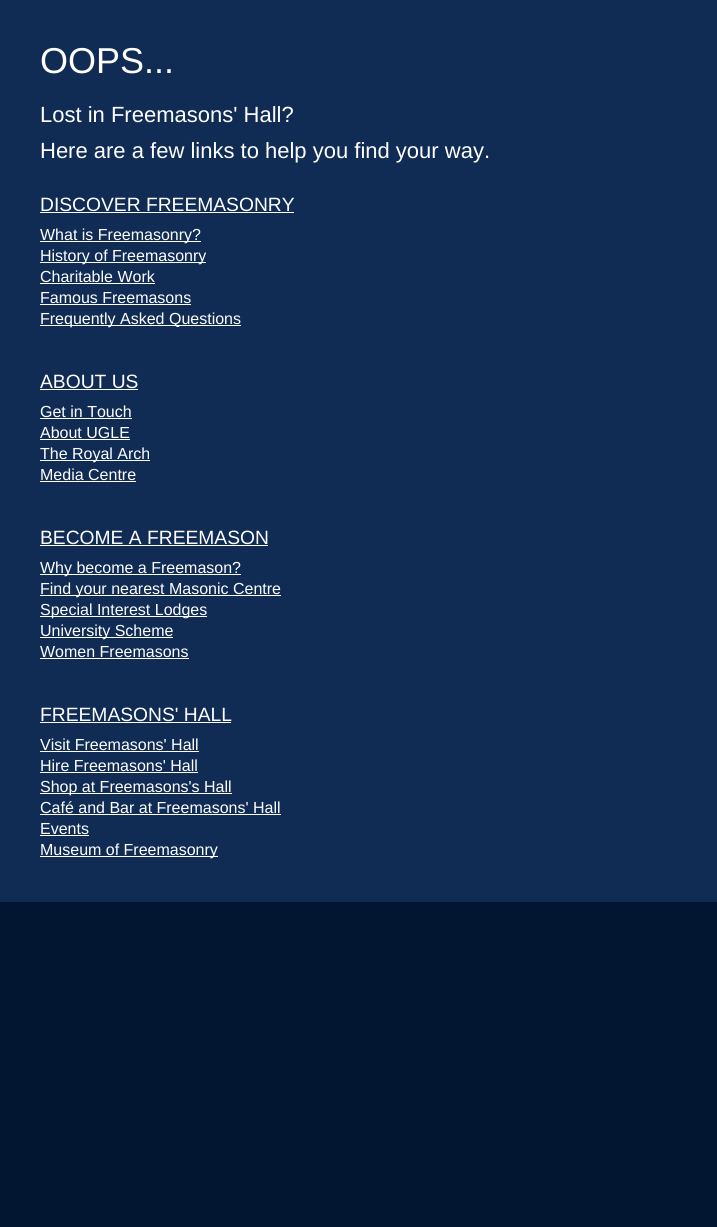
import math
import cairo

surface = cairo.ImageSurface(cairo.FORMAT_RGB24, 717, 1227)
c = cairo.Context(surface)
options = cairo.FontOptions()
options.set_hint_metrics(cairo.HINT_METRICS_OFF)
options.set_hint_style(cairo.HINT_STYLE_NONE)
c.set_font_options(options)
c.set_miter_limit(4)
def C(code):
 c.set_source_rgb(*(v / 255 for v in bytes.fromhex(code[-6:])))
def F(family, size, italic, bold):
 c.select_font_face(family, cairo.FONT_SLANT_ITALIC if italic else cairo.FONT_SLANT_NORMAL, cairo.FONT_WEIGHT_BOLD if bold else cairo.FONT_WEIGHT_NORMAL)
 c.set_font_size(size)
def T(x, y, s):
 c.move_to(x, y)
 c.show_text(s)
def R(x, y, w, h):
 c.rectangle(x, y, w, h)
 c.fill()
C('021631')
c.paint()
C('102c55')
R(0,0,717,902)
F('Liberation Sans',36,0,0)
C('ffffff')
T(40,73,'OOPS...')
F('Liberation Sans',22,0,0)
T(40,122,'Lost in Freemasons\' Hall?')
T(40,158,'Here are a few links to help you find your way.')
F('Liberation Sans',19.25,0,0)
T(40,211,'DISCOVER FREEMASONRY')
R(40,212,254,1)
R(40,241,161,1)
F('Liberation Sans',16,0,0)
T(40,240,'What is Freemasonry?')
R(40,262,166,1)
T(40,261,'History of Freemasonry')
T(40,282,'Charitable Work')
R(40,283,115,1)
T(40,303,'Famous Freemasons')
R(40,304,151,1)
R(40,325,201,1)
T(40,324,'Frequently Asked Questions')
F('Liberation Sans',19.25,0,0)
T(40,388,'ABOUT US')
R(40,389,98,1)
F('Liberation Sans',16,0,0)
T(40,417,'Get in Touch')
R(40,418,92,1)
T(40,438,'About UGLE')
R(40,439,90,1)
R(40,460,110,1)
T(40,459,'The Royal Arch')
T(40,480,'Media Centre')
R(40,481,96,1)
F('Liberation Sans',19.25,0,0)
T(40,544,'BECOME A FREEMASON')
R(40,545,228,1)
R(40,574,201,1)
F('Liberation Sans',16,0,0)
T(40,573,'Why become a Freemason?')
R(40,595,241,1)
T(40,594,'Find your nearest Masonic Centre')
R(40,616,167,1)
T(40,615,'Special Interest Lodges')
R(40,637,133,1)
T(40,636,'University Scheme')
T(40,657,'Women Freemasons')
R(40,658,149,1)
F('Liberation Sans',19.25,0,0)
T(40,721,'FREEMASONS\' HALL')
R(40,722,191,1)
F('Liberation Sans',16,0,0)
T(40,750,'Visit Freemasons\' Hall')
R(40,751,159,1)
T(40,771,'Hire Freemasons\' Hall')
R(40,772,158,1)
R(40,793,192,1)
T(40,792,'Shop at Freemasons\'s Hall')
T(40,813,'Café and Bar at Freemasons\' Hall')
R(40,814,241,1)
T(40,834,'Events')
R(40,835,49,1)
R(40,856,178,1)
T(40,855,'Museum of Freemasonry')
surface.write_to_png('o.png')
